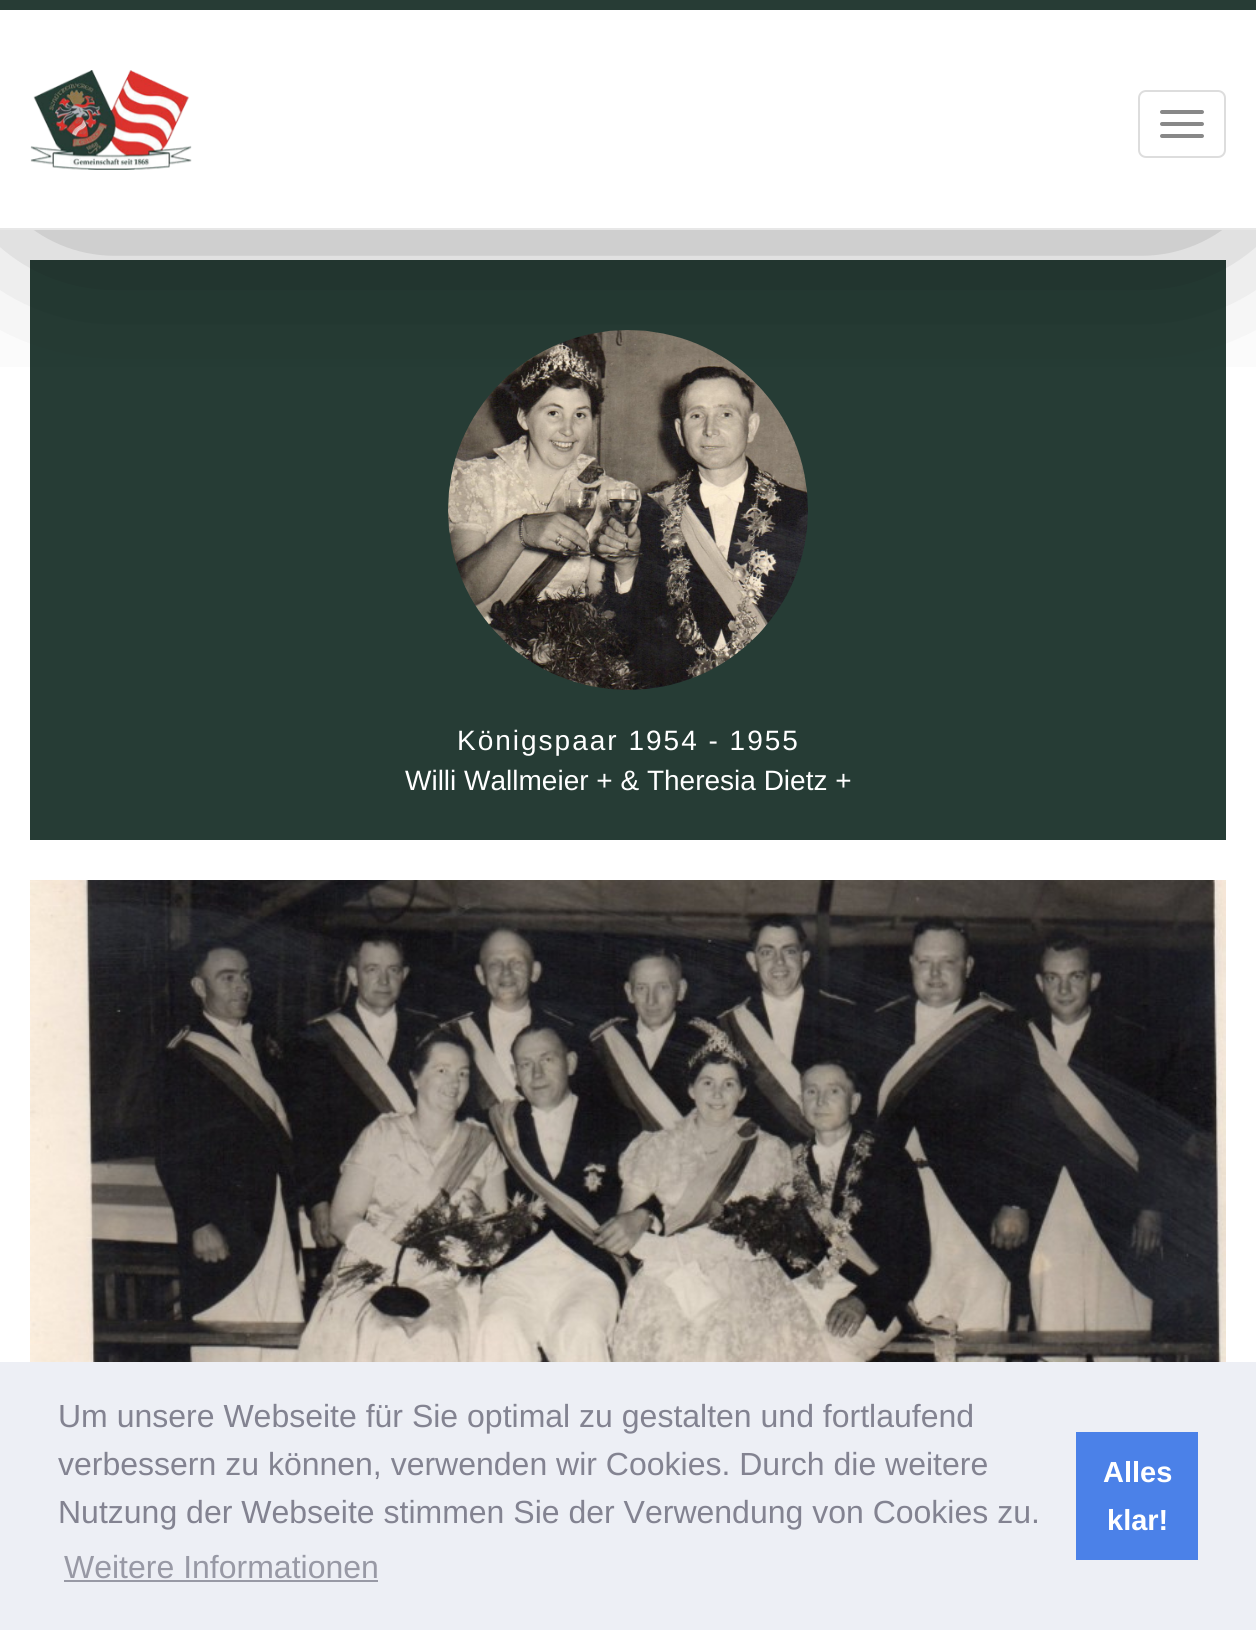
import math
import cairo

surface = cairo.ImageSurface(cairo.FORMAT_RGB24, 1256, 1630)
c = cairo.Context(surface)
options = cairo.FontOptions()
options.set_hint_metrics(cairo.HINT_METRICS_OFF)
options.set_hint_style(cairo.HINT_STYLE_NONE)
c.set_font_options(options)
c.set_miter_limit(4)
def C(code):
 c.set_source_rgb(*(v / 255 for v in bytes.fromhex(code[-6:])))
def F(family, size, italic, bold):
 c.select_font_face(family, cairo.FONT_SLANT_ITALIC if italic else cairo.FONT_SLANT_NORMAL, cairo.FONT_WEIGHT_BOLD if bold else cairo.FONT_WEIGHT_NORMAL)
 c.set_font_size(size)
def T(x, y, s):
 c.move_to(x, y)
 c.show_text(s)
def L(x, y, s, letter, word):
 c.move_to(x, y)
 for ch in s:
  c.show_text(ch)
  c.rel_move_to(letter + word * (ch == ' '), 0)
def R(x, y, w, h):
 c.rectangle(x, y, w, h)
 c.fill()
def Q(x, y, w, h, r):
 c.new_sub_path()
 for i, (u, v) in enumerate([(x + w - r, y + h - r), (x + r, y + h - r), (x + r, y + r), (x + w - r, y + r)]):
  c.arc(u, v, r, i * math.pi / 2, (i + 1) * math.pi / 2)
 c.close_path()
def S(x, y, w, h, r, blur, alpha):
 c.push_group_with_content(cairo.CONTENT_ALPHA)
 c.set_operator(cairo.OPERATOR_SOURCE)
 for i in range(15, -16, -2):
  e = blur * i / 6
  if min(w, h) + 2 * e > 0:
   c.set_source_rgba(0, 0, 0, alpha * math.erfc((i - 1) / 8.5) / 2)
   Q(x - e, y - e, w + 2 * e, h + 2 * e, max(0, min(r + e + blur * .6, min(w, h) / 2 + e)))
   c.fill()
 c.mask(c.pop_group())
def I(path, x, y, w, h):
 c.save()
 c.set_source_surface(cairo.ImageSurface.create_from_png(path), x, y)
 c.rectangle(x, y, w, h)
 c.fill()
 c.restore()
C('ffffff')
c.paint()
C('263c35')
R(30,260,1196,580)
I('2.png',448,330,360,360)
c.save()
c.rectangle(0,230,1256,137)
c.clip()
C('000000')
S(60,60,1136,110,0,103,.75)
c.restore()
C('273c35')
R(0,0,1256,10)
C('e7e7e7')
R(0,228,1256,2)
I('1.png',30,70,162,100)
Q(1139,91,86,66,7)
C('dddddd')
c.stroke()
C('888888')
Q(1160,110,44,4,2)
c.fill()
Q(1160,122,44,4,2)
c.fill()
Q(1160,134,44,4,2)
c.fill()
F('Liberation Sans',28,0,0)
C('ffffff')
L(457,750,'Königspaar 1954 - 1955',2,0)
T(405,790,'Willi Wallmeier + & Theresia Dietz +')
I('3.png',30,880,1196,482)
C('edeff5')
R(0,1362,1256,268)
F('Liberation Sans',32,0,0)
C('838391')
T(58,1427,'Um unsere Webseite für Sie optimal zu gestalten und fortlaufend')
T(58,1475,'verbessern zu können, verwenden wir Cookies. Durch die weitere')
T(58,1523,'Nutzung der Webseite stimmen Sie der Verwendung von Cookies zu.')
C('9899a5')
T(64,1578,'Weitere Informationen')
R(64,1580,314,2)
C('4b81e8')
R(1076,1432,122,128)
F('Liberation Sans',29,0,1)
C('ffffff')
T(1103,1482,'Alles')
T(1107,1530,'klar!')
surface.write_to_png('o.png')
